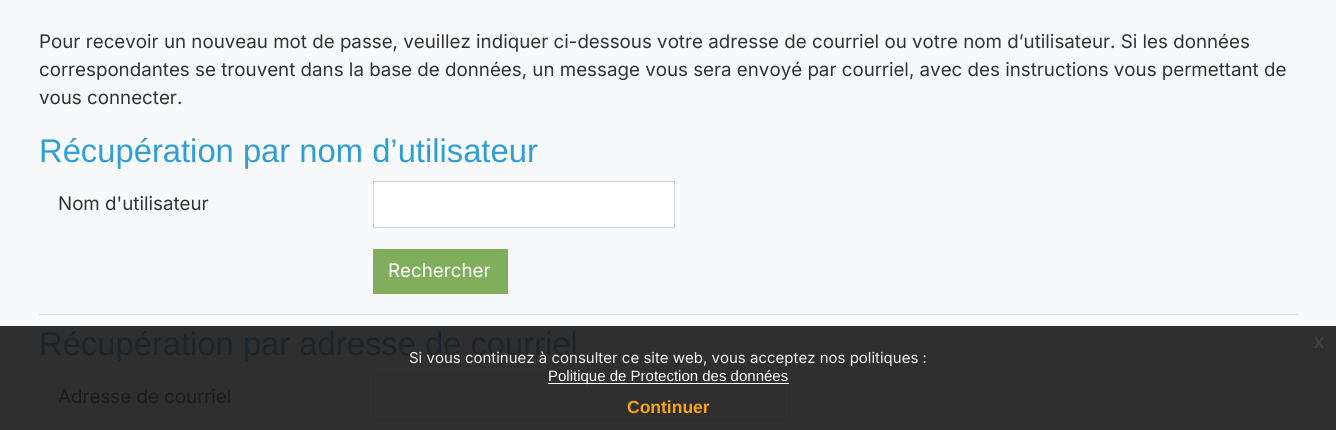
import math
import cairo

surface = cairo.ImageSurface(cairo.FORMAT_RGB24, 1336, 430)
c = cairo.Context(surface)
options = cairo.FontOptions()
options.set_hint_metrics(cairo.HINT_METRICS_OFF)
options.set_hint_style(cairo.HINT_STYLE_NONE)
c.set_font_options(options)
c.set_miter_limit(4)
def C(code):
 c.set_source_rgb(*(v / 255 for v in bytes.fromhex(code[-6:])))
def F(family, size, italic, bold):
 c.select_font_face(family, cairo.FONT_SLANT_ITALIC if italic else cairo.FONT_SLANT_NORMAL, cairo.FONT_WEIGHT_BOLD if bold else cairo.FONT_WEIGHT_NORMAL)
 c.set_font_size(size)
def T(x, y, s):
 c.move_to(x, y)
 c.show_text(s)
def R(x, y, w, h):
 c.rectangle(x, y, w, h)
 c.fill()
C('f8f9fa')
c.paint()
C('2f2f2f')
R(0,326,1336,104)
F('Inter',18.75,0,0)
C('333333')
T(39,48,'Pour recevoir un nouveau mot de passe, veuillez indiquer ci-dessous votre adresse de courriel ou votre nom d’utilisateur. Si les données')
T(39,76,'correspondantes se trouvent dans la base de données, un message vous sera envoyé par courriel, avec des instructions vous permettant de')
T(39,104,'vous connecter.')
C('dee2e6')
R(39,314,1259,1)
F('Liberation Sans',32.75,0,0)
C('2e9ed4')
T(39,162,'Récupération par nom d’utilisateur')
F('Inter',18.75,0,0)
C('333333')
T(58,210,'Nom d\'utilisateur')
C('ffffff')
R(374,183,300,43)
c.rectangle(373.5,181.5,301,46)
C('ced4da')
c.set_line_width(1)
c.stroke()
C('80ae5c')
R(373,249,135,45)
C('ffffff')
T(388,277,'Rechercher')
F('Liberation Sans',32.75,0,0)
C('1b262c')
T(39,355,'Récupération par adresse de courriel')
F('Inter',18.75,0,0)
C('1c1c1c')
T(58,403,'Adresse de courriel')
c.rectangle(373.5,375.5,416,44)
C('2b2c2c')
c.stroke()
F('Liberation Sans',20,0,0)
C('464646')
T(1314,348,'x')
F('Inter',15,0,0)
C('efefef')
T(409,363,'Si vous continuez à consulter ce site web, vous acceptez nos politiques :')
C('ffffff')
R(548,383,241,1)
F('Liberation Sans',15,0,0)
T(548,381,'Politique de Protection des données')
F('Liberation Sans',17.5,0,1)
C('f6a21d')
T(627,413,'Continuer')
surface.write_to_png('o.png')
